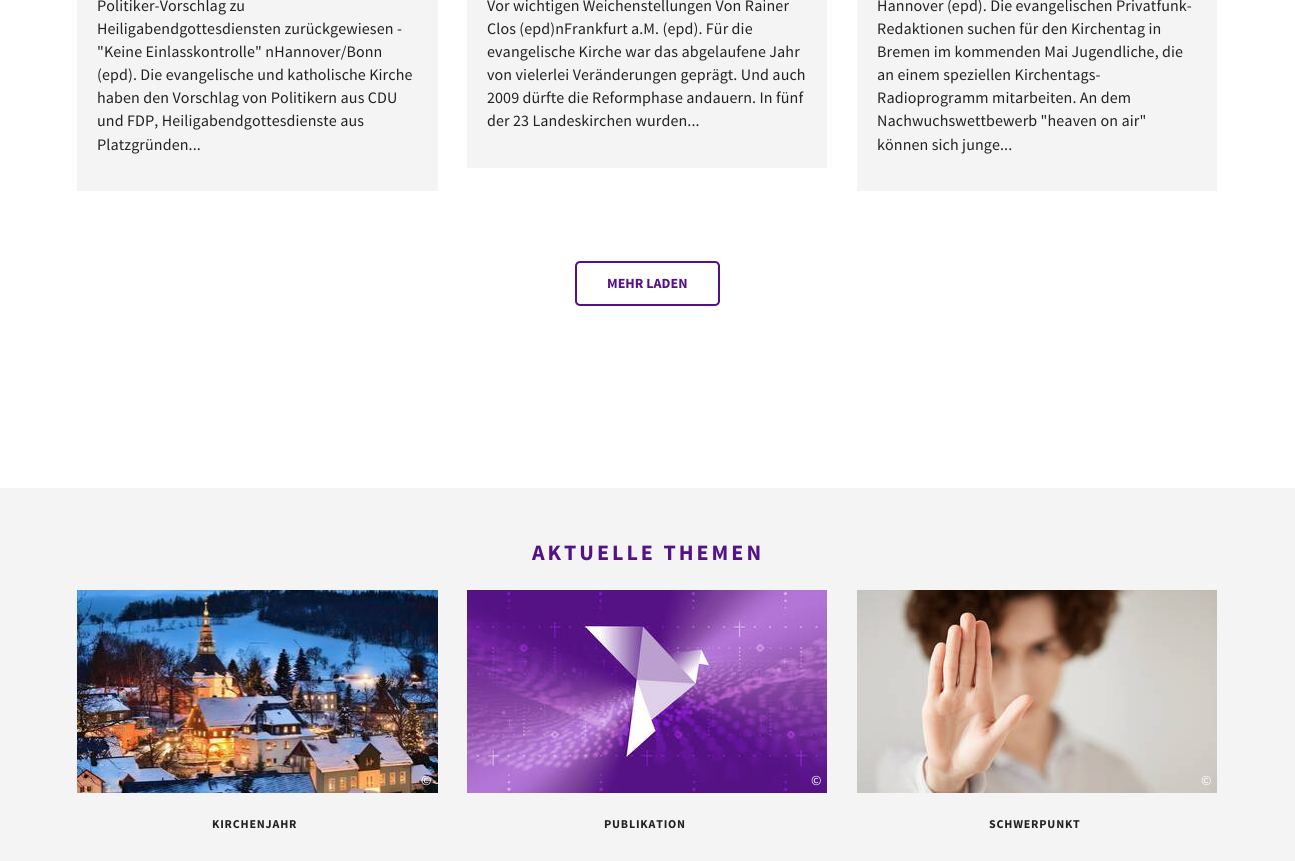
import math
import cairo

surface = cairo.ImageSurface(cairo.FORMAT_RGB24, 1295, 861)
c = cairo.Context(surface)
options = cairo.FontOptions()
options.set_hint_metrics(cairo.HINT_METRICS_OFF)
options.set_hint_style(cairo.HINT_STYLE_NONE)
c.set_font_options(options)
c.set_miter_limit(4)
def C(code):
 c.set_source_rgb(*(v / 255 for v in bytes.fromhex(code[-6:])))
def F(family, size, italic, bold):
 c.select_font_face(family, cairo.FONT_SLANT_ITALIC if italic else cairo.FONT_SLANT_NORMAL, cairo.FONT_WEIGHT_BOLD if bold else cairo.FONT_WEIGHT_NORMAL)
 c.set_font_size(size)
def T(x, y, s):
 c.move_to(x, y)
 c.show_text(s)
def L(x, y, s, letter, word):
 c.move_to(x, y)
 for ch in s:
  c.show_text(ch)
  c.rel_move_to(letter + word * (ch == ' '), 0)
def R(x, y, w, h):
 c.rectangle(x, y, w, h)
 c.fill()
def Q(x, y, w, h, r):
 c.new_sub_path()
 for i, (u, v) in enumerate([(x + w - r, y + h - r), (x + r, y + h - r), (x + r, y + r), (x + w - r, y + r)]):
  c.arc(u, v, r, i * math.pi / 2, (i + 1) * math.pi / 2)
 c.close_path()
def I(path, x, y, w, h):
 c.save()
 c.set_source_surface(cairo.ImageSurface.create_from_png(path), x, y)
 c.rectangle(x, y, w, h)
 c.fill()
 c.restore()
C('ffffff')
c.paint()
C('f4f4f4')
R(77,0,361,191)
F('Source Sans Pro',16,0,0)
C('222222')
L(97,11,'Politiker-Vorschlag zu',.1,0)
L(97,34,'Heiligabendgottesdiensten zurückgewiesen -',.1,0)
L(97,57,'"Keine Einlasskontrolle" nHannover/Bonn',.1,0)
L(97,80,'(epd). Die evangelische und katholische Kirche',.1,0)
L(97,103,'haben den Vorschlag von Politikern aus CDU',.1,0)
L(97,126,'und FDP, Heiligabendgottesdienste aus',.1,0)
L(97,150,'Platzgründen...',.1,0)
C('f4f4f4')
R(467,0,360,168)
C('222222')
L(487,11,'Vor wichtigen Weichenstellungen Von Rainer',.1,0)
L(487,34,'Clos (epd)nFrankfurt a.M. (epd). Für die',.1,0)
L(487,57,'evangelische Kirche war das abgelaufene Jahr',.1,0)
L(487,80,'von vielerlei Veränderungen geprägt. Und auch',.1,0)
L(487,103,'2009 dürfte die Reformphase andauern. In fünf',.1,0)
L(487,126,'der 23 Landeskirchen wurden...',.1,0)
C('f4f4f4')
R(857,0,360,191)
C('222222')
L(877,11,'Hannover (epd). Die evangelischen Privatfunk-',.1,0)
L(877,34,'Redaktionen suchen für den Kirchentag in',.1,0)
L(877,57,'Bremen im kommenden Mai Jugendliche, die',.1,0)
L(877,80,'an einem speziellen Kirchentags-',.1,0)
L(877,103,'Radioprogramm mitarbeiten. An dem',.1,0)
L(877,126,'Nachwuchswettbewerb "heaven on air"',.1,0)
L(877,150,'können sich junge...',.1,0)
Q(576,262,143,43,4)
C('551285')
c.stroke()
F('Source Sans Pro',14,0,1)
T(607,288,'MEHR LADEN')
C('f4f4f4')
R(0,488,1295,373)
F('Source Sans Pro',22,0,1)
C('551285')
L(532,560,'AKTUELLE THEMEN',3,0)
I('1.png',77,590,361,203)
F('Source Sans Pro',14,0,0)
C('ffffff')
T(421,785,'©')
F('Source Sans Pro',12,0,1)
C('222222')
L(212,828,'KIRCHENJAHR',.8,0)
I('2.png',467,590,360,203)
F('Source Sans Pro',14,0,0)
C('ffffff')
T(811,785,'©')
F('Source Sans Pro',12,0,1)
C('222222')
L(604,828,'PUBLIKATION',.8,0)
I('3.png',857,590,360,203)
F('Source Sans Pro',14,0,0)
C('ffffff')
T(1201,785,'©')
F('Source Sans Pro',12,0,1)
C('222222')
L(989,828,'SCHWERPUNKT',.8,0)
surface.write_to_png('o.png')
